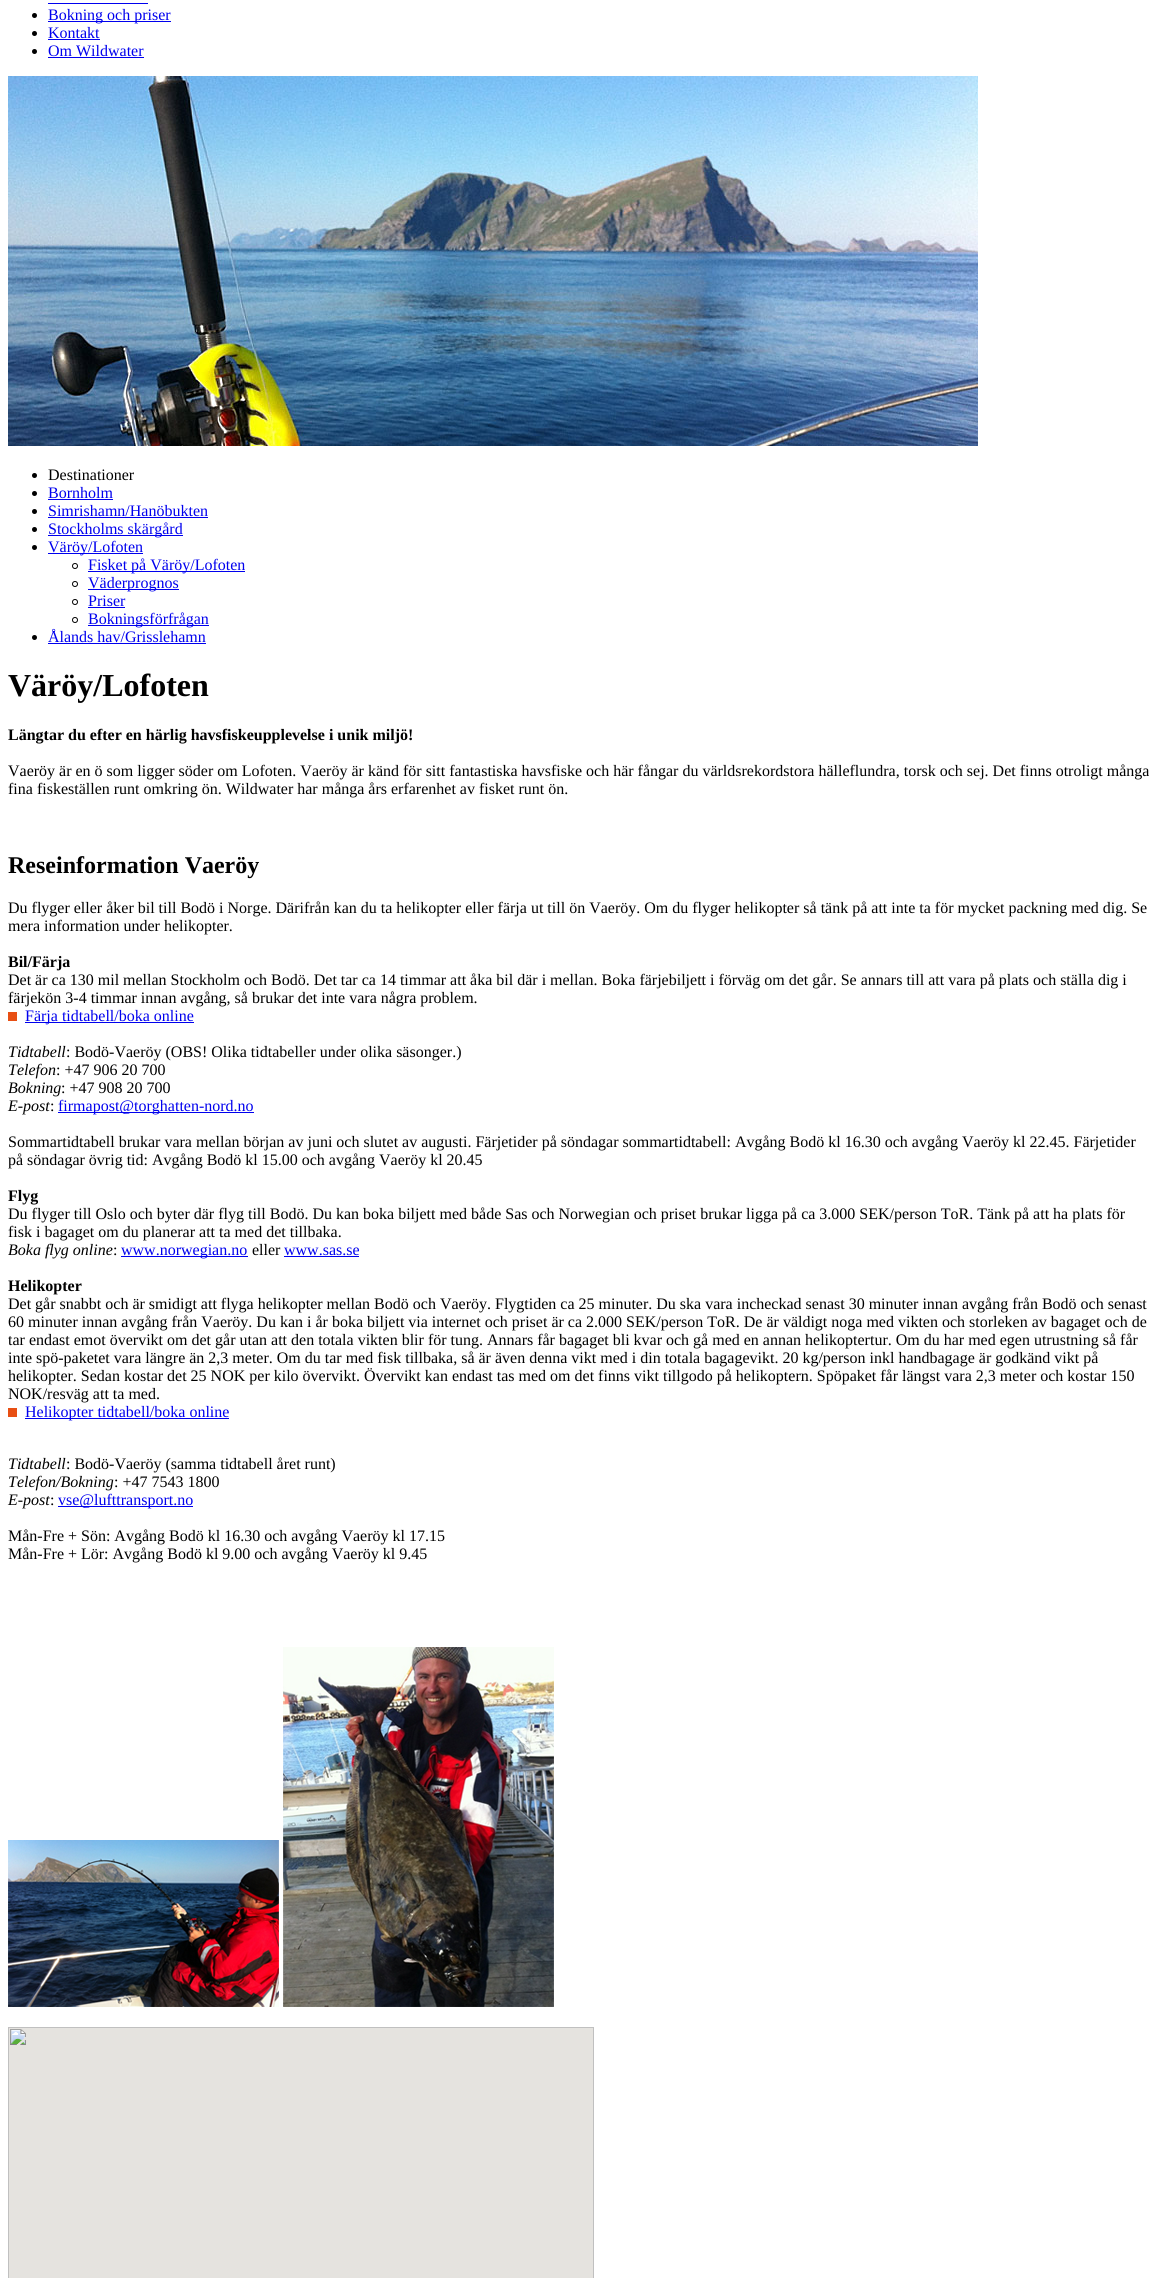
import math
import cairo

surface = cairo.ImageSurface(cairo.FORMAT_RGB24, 1159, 2278)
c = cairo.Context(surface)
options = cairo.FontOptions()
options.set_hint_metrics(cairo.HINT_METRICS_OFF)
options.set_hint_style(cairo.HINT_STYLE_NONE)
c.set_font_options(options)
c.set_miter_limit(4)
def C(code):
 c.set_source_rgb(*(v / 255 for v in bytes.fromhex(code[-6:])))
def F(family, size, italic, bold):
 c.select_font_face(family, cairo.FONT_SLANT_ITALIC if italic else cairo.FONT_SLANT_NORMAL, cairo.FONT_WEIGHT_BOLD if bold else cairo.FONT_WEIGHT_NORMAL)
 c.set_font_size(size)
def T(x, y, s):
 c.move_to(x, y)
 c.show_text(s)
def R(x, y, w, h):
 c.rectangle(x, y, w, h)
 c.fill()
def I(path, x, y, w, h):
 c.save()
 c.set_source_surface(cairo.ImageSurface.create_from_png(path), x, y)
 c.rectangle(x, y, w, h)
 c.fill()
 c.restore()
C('ffffff')
c.paint()
C('0000ee')
R(48,3,100,1)
C('000000')
c.arc(34.5,15.5,2.5,0,2 * math.pi)
c.fill()
C('0000ee')
R(48,21,123,1)
F('Liberation Serif',16,0,0)
T(48,20,'Bokning och priser')
C('000000')
c.new_path()
c.arc(34.5,33.5,2.5,0,2 * math.pi)
c.fill()
C('0000ee')
T(48,38,'Kontakt')
R(48,39,52,1)
C('000000')
c.new_path()
c.arc(34.5,51.5,2.5,0,2 * math.pi)
c.fill()
C('0000ee')
T(48,56,'Om Wildwater')
R(48,57,96,1)
I('1.png',8,76,970,370)
C('000000')
c.arc(34.5,475.5,2.5,0,2 * math.pi)
c.fill()
T(48,480,'Destinationer')
c.new_path()
c.arc(34.5,493.5,2.5,0,2 * math.pi)
c.fill()
C('0000ee')
T(48,498,'Bornholm')
R(48,499,65,1)
C('000000')
c.new_path()
c.arc(34.5,511.5,2.5,0,2 * math.pi)
c.fill()
C('0000ee')
T(48,516,'Simrishamn/Hanöbukten')
R(48,517,160,1)
C('000000')
c.new_path()
c.arc(34.5,529.5,2.5,0,2 * math.pi)
c.fill()
C('0000ee')
R(48,535,135,1)
T(48,534,'Stockholms skärgård')
C('000000')
c.new_path()
c.arc(34.5,547.5,2.5,0,2 * math.pi)
c.fill()
C('0000ee')
R(48,553,95,1)
T(48,552,'Väröy/Lofoten')
c.new_path()
c.arc(75,566,2.5,0,2 * math.pi)
C('000000')
c.set_line_width(1)
c.stroke()
C('0000ee')
R(88,571,157,1)
T(88,570,'Fisket på Väröy/Lofoten')
c.new_path()
c.arc(75,584,2.5,0,2 * math.pi)
C('000000')
c.stroke()
C('0000ee')
R(88,589,91,1)
T(88,588,'Väderprognos')
c.new_path()
c.arc(75,602,2.5,0,2 * math.pi)
C('000000')
c.stroke()
C('0000ee')
T(88,606,'Priser')
R(88,607,37,1)
c.new_path()
c.arc(75,620,2.5,0,2 * math.pi)
C('000000')
c.stroke()
C('0000ee')
R(88,625,121,1)
T(88,624,'Bokningsförfrågan')
C('000000')
c.new_path()
c.arc(34.5,637.5,2.5,0,2 * math.pi)
c.fill()
C('0000ee')
T(48,642,'Ålands hav/Grisslehamn')
R(48,643,158,1)
F('Liberation Serif',32,0,1)
C('000000')
T(8,696,'Väröy/Lofoten')
F('Liberation Serif',16,0,1)
T(8,740,'Längtar du efter en härlig havsfiskeupplevelse i unik miljö!')
F('Liberation Serif',16,0,0)
T(8,776,'Vaeröy är en ö som ligger söder om Lofoten. Vaeröy är känd för sitt fantastiska havsfiske och här fångar du världsrekordstora hälleflundra, torsk och sej. Det finns otroligt många')
T(8,794,'fina fiskeställen runt omkring ön. Wildwater har många års erfarenhet av fisket runt ön.')
F('Liberation Serif',24,0,1)
T(8,873,'Reseinformation Vaeröy')
F('Liberation Serif',16,0,0)
T(8,913,'Du flyger eller åker bil till Bodö i Norge. Därifrån kan du ta helikopter eller färja ut till ön Vaeröy. Om du flyger helikopter så tänk på att inte ta för mycket packning med dig. Se')
T(8,931,'mera information under helikopter.')
F('Liberation Serif',16,0,1)
T(8,967,'Bil/Färja')
F('Liberation Serif',16,0,0)
T(8,985,'Det är ca 130 mil mellan Stockholm och Bodö. Det tar ca 14 timmar att åka bil där i mellan. Boka färjebiljett i förväg om det går. Se annars till att vara på plats och ställa dig i')
T(8,1003,'färjekön 3-4 timmar innan avgång, så brukar det inte vara några problem.')
C('e84f13')
R(8,1012,9,9)
C('0000ee')
R(25,1022,169,1)
T(25,1021,'Färja tidtabell/boka online')
F('Liberation Serif',16,1,0)
C('000000')
T(8,1057,'Tidtabell')
F('Liberation Serif',16,0,0)
T(66,1057,': Bodö-Vaeröy (OBS! Olika tidtabeller under olika säsonger.)')
F('Liberation Serif',16,1,0)
T(8,1075,'Telefon')
F('Liberation Serif',16,0,0)
T(56,1075,': +47 906 20 700')
F('Liberation Serif',16,1,0)
T(8,1093,'Bokning')
F('Liberation Serif',16,0,0)
T(61,1093,': +47 908 20 700')
F('Liberation Serif',16,1,0)
T(8,1111,'E-post')
F('Liberation Serif',16,0,0)
T(50,1111,':')
C('0000ee')
R(58,1112,196,1)
T(58,1111,'firmapost@torghatten-nord.no')
C('000000')
T(8,1147,'Sommartidtabell brukar vara mellan början av juni och slutet av augusti. Färjetider på söndagar sommartidtabell: Avgång Bodö kl 16.30 och avgång Vaeröy kl 22.45. Färjetider')
T(8,1165,'på söndagar övrig tid: Avgång Bodö kl 15.00 och avgång Vaeröy kl 20.45')
F('Liberation Serif',16,0,1)
T(8,1201,'Flyg')
F('Liberation Serif',16,0,0)
T(8,1219,'Du flyger till Oslo och byter där flyg till Bodö. Du kan boka biljett med både Sas och Norwegian och priset brukar ligga på ca 3.000 SEK/person ToR. Tänk på att ha plats för')
T(8,1237,'fisk i bagaget om du planerar att ta med det tillbaka.')
F('Liberation Serif',16,1,0)
T(8,1255,'Boka flyg online')
F('Liberation Serif',16,0,0)
T(113,1255,':')
C('0000ee')
R(121,1256,127,1)
T(121,1255,'www.norwegian.no')
C('000000')
T(252,1255,'eller')
C('0000ee')
T(284,1255,'www.sas.se')
R(284,1256,75,1)
F('Liberation Serif',16,0,1)
C('000000')
T(8,1291,'Helikopter')
F('Liberation Serif',16,0,0)
T(8,1309,'Det går snabbt och är smidigt att flyga helikopter mellan Bodö och Vaeröy. Flygtiden ca 25 minuter. Du ska vara incheckad senast 30 minuter innan avgång från Bodö och senast')
T(8,1327,'60 minuter innan avgång från Vaeröy. Du kan i år boka biljett via internet och priset är ca 2.000 SEK/person ToR. De är väldigt noga med vikten och storleken av bagaget och de')
T(8,1345,'tar endast emot övervikt om det går utan att den totala vikten blir för tung. Annars får bagaget bli kvar och gå med en annan helikoptertur. Om du har med egen utrustning så får')
T(8,1363,'inte spö-paketet vara längre än 2,3 meter. Om du tar med fisk tillbaka, så är även denna vikt med i din totala bagagevikt. 20 kg/person inkl handbagage är godkänd vikt på')
T(8,1381,'helikopter. Sedan kostar det 25 NOK per kilo övervikt. Övervikt kan endast tas med om det finns vikt tillgodo på helikoptern. Spöpaket får längst vara 2,3 meter och kostar 150')
T(8,1399,'NOK/resväg att ta med.')
C('e84f13')
R(8,1408,9,9)
C('0000ee')
R(25,1418,204,1)
T(25,1417,'Helikopter tidtabell/boka online')
F('Liberation Serif',16,1,0)
C('000000')
T(8,1469,'Tidtabell')
F('Liberation Serif',16,0,0)
T(66,1469,': Bodö-Vaeröy (samma tidtabell året runt)')
F('Liberation Serif',16,1,0)
T(8,1487,'Telefon/Bokning')
F('Liberation Serif',16,0,0)
T(114,1487,': +47 7543 1800')
F('Liberation Serif',16,1,0)
T(8,1505,'E-post')
F('Liberation Serif',16,0,0)
T(50,1505,':')
C('0000ee')
R(58,1506,135,1)
T(58,1505,'vse@lufttransport.no')
C('000000')
T(8,1541,'Mån-Fre + Sön: Avgång Bodö kl 16.30 och avgång Vaeröy kl 17.15')
T(8,1559,'Mån-Fre + Lör: Avgång Bodö kl 9.00 och avgång Vaeröy kl 9.45')
I('2.png',8,1840,271,167)
I('3.png',283,1647,271,360)
I('4.png',8,2027,586,251)
surface.write_to_png('o.png')
